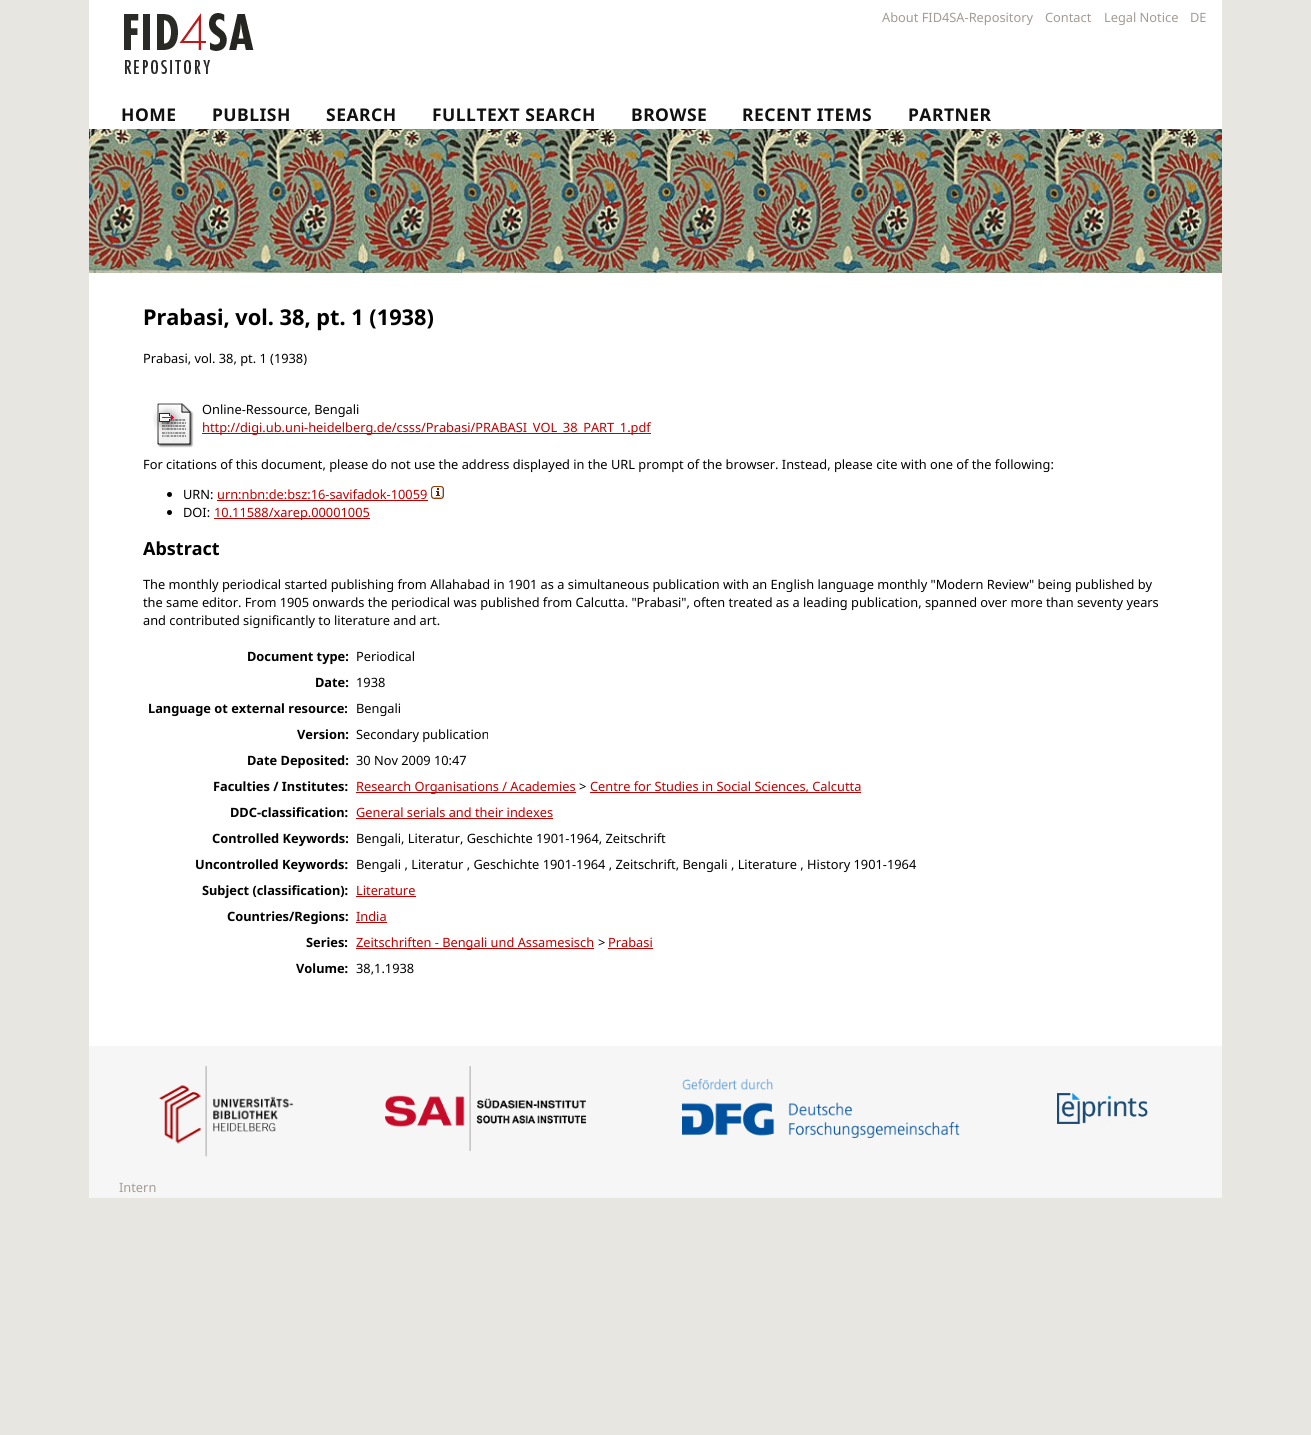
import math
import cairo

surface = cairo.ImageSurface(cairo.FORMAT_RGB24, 1311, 1435)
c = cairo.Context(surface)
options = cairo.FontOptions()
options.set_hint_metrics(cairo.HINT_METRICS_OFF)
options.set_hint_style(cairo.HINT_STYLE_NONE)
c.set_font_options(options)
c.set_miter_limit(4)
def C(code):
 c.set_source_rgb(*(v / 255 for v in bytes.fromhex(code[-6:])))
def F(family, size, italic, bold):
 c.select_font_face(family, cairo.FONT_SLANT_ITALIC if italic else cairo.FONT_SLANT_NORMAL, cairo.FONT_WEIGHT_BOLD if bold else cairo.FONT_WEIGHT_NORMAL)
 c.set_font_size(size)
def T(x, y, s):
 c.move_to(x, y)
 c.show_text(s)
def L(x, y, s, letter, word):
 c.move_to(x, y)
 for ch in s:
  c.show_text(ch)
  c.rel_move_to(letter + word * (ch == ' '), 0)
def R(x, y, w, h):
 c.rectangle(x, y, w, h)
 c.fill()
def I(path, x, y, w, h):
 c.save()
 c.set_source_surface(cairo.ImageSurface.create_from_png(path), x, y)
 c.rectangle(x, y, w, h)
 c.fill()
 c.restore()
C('e8e6e1')
c.paint()
C('ffffff')
R(89,0,1133,1046)
I('1.png',124,13,130,61)
F('Noto Sans',12.8,0,0)
C('a39b94')
T(882,22,'About FID4SA-Repository')
T(1045,22,'Contact')
T(1104,22,'Legal Notice')
T(1190,22,'DE')
F('Noto Sans',17.5,0,1)
C('111111')
L(121,121,'HOME',.5,0)
L(212,121,'PUBLISH',.5,0)
L(326,121,'SEARCH',.5,0)
L(432,121,'FULLTEXT SEARCH',.5,0)
L(631,121,'BROWSE',.5,0)
L(742,121,'RECENT ITEMS',.5,0)
L(908,121,'PARTNER',.5,0)
I('2.png',89,129,1133,144)
F('Noto Sans',21.75,0,1)
C('000000')
T(143,325,'Prabasi, vol. 38, pt. 1 (1938)')
F('Noto Sans',12.8,0,0)
T(143,363,'Prabasi, vol. 38, pt. 1 (1938)')
I('3.png',153,403,41,45)
T(202,414,'Online-Ressource, Bengali')
C('bf0001')
R(202,433,449,1)
T(202,432,'http://digi.ub.uni-heidelberg.de/csss/Prabasi/PRABASI_VOL_38_PART_1.pdf')
C('000000')
T(143,469,'For citations of this document, please do not use the address displayed in the URL prompt of the browser. Instead, please cite with one of the following:')
c.new_path()
c.arc(169.5,494.5,2.5,0,2 * math.pi)
c.fill()
T(183,499,'URN:')
C('bf0001')
T(217,499,'urn:nbn:de:bsz:16-savifadok-10059')
R(217,500,211,1)
I('4.png',431,486,13,13)
C('000000')
c.arc(169.5,512.5,2.5,0,2 * math.pi)
c.fill()
T(183,517,'DOI:')
C('bf0001')
R(214,518,156,1)
T(214,517,'10.11588/xarep.00001005')
F('Noto Sans',18,0,1)
C('000000')
T(143,555,'Abstract')
F('Noto Sans',12.8,0,0)
T(143,589,'The monthly periodical started publishing from Allahabad in 1901 as a simultaneous publication with an English language monthly "Modern Review" being published by')
T(143,607,'the same editor. From 1905 onwards the periodical was published from Calcutta. "Prabasi", often treated as a leading publication, spanned over more than seventy years')
T(143,625,'and contributed significantly to literature and art.')
F('Noto Sans',12.8,0,1)
T(247,661,'Document type:')
F('Noto Sans',12.8,0,0)
T(356,661,'Periodical')
F('Noto Sans',12.8,0,1)
T(315,687,'Date:')
F('Noto Sans',12.8,0,0)
T(356,687,'1938')
F('Noto Sans',12.8,0,1)
T(148,713,'Language ot external resource:')
F('Noto Sans',12.8,0,0)
T(356,713,'Bengali')
F('Noto Sans',12.8,0,1)
T(297,739,'Version:')
F('Noto Sans',12.8,0,0)
T(356,739,'Secondary publication')
F('Noto Sans',12.8,0,1)
T(247,765,'Date Deposited:')
F('Noto Sans',12.8,0,0)
T(356,765,'30 Nov 2009 10:47')
F('Noto Sans',12.8,0,1)
T(213,791,'Faculties / Institutes:')
C('bf0001')
R(356,792,220,1)
F('Noto Sans',12.8,0,0)
T(356,791,'Research Organisations / Academies')
C('000000')
T(579,791,'>')
C('bf0001')
R(590,792,271,1)
T(590,791,'Centre for Studies in Social Sciences, Calcutta')
F('Noto Sans',12.8,0,1)
C('000000')
T(230,817,'DDC-classification:')
F('Noto Sans',12.8,0,0)
C('bf0001')
T(356,817,'General serials and their indexes')
R(356,818,197,1)
F('Noto Sans',12.8,0,1)
C('000000')
T(212,843,'Controlled Keywords:')
F('Noto Sans',12.8,0,0)
T(356,843,'Bengali, Literatur, Geschichte 1901-1964, Zeitschrift')
F('Noto Sans',12.8,0,1)
T(195,869,'Uncontrolled Keywords:')
F('Noto Sans',12.8,0,0)
T(356,869,'Bengali , Literatur , Geschichte 1901-1964 , Zeitschrift, Bengali , Literature , History 1901-1964')
F('Noto Sans',12.8,0,1)
T(202,895,'Subject (classification):')
F('Noto Sans',12.8,0,0)
C('bf0001')
T(356,895,'Literature')
R(356,896,60,1)
F('Noto Sans',12.8,0,1)
C('000000')
T(227,921,'Countries/Regions:')
F('Noto Sans',12.8,0,0)
C('bf0001')
T(356,921,'India')
R(356,922,31,1)
F('Noto Sans',12.8,0,1)
C('000000')
T(306,947,'Series:')
C('bf0001')
R(356,948,238,1)
F('Noto Sans',12.8,0,0)
T(356,947,'Zeitschriften - Bengali und Assamesisch')
C('000000')
T(598,947,'>')
C('bf0001')
T(608,947,'Prabasi')
R(608,948,45,1)
F('Noto Sans',12.8,0,1)
C('000000')
T(296,973,'Volume:')
F('Noto Sans',12.8,0,0)
T(356,973,'38,1.1938')
C('f6f6f6')
R(89,1046,1133,152)
I('5.png',159,1065,135,92)
I('6.png',385,1066,201,85)
I('7.png',682,1078,278,60)
I('8.png',1057,1093,100,31)
C('a39b94')
T(119,1192,'Intern')
surface.write_to_png('o.png')
